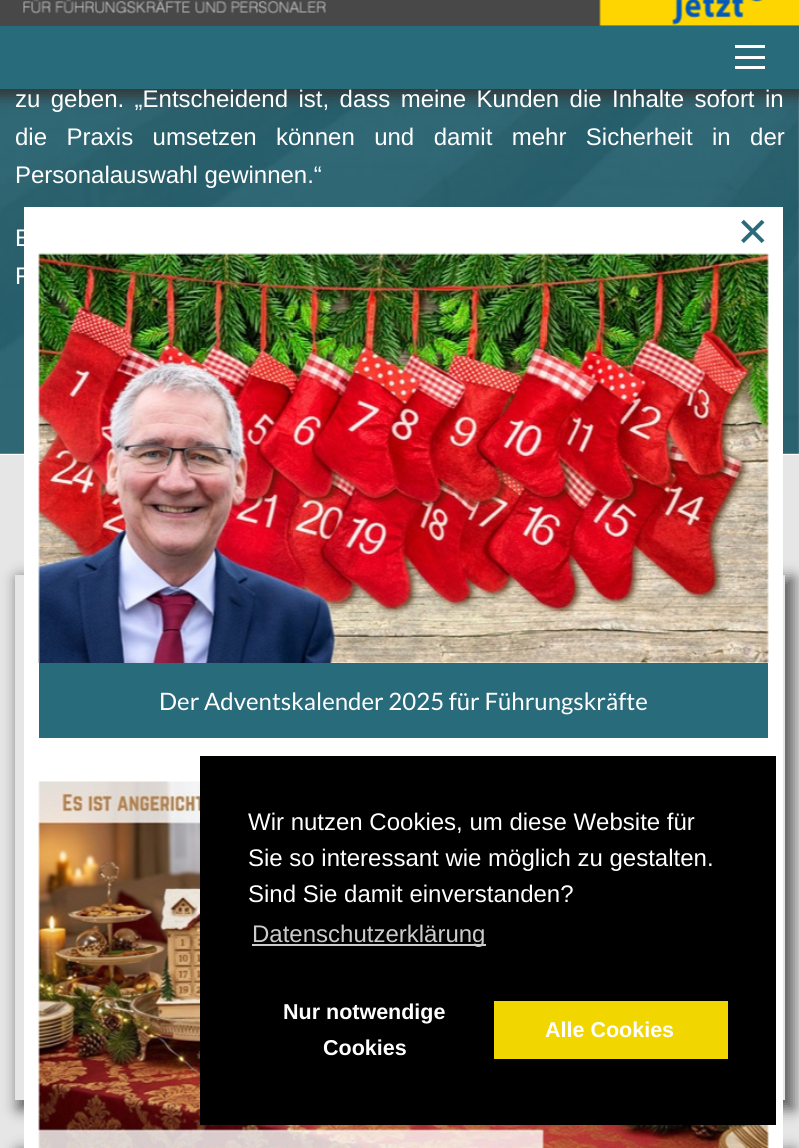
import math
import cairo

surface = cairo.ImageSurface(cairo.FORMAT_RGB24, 799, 1148)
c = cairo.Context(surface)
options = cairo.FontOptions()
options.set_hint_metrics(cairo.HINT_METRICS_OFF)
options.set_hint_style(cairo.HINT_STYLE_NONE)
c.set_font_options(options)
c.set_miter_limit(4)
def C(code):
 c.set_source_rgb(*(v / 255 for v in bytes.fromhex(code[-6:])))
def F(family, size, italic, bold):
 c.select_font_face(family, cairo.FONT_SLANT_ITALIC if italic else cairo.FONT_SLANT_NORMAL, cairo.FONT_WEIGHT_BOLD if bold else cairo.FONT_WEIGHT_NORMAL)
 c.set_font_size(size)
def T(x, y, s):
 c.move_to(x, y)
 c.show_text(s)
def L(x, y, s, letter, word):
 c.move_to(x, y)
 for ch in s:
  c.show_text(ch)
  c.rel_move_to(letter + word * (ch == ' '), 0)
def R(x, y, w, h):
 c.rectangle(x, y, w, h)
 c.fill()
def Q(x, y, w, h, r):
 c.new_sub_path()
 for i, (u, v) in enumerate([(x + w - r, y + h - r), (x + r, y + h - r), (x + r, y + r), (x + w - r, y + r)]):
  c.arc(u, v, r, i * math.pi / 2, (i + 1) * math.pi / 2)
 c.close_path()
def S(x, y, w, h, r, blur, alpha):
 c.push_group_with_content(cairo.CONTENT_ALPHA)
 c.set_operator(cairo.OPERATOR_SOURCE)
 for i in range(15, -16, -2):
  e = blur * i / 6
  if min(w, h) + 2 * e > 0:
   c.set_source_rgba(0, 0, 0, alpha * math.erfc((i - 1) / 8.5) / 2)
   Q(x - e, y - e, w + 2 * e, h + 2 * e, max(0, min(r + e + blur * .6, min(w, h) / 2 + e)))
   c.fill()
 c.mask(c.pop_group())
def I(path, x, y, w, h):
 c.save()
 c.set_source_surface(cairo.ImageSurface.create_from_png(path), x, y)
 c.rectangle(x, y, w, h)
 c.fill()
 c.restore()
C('ffffff')
c.paint()
I('3.png',0,89,799,365)
C('333333')
S(-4,-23,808,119,0,7.5,1)
C('484848')
R(0,0,799,26)
I('1.png',23,0,303,14)
I('2.png',599,0,200,26)
C('286b7b')
R(0,26,799,63)
C('fefefe')
R(735,66,30,3)
R(735,56,30,3)
R(735,45,30,3)
F('Liberation Sans',24,0,0)
C('ffffff')
L(15,107,'zu geben. „Entscheidend ist, dass meine Kunden die Inhalte sofort in',0,3.75)
L(15,145,'die Praxis umsetzen können und damit mehr Sicherheit in der',0,12.75)
T(15,183,'Personalauswahl gewinnen.“')
T(15,246,'E')
L(15,284,'F',0,12)
C('e6e6e6')
R(0,455,799,693)
c.save()
c.set_fill_rule(cairo.FILL_RULE_EVEN_ODD)
c.new_path()
c.move_to(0,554)
c.line_to(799,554)
c.line_to(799,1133)
c.line_to(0,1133)
c.close_path()
c.move_to(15,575)
c.line_to(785,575)
c.line_to(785,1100)
c.line_to(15,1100)
c.close_path()
c.clip()
C('5c5c5c')
S(18,578,776,531,0,7.5,1)
c.restore()
C('5c5c5c')
S(18,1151,776,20,0,7.5,1)
C('ffffff')
R(24,207,759,941)
F('DejaVu Sans',40,0,0)
C('286b7b')
T(736,246,'✕')
I('4.png',38,253,731,410)
R(39,663,729,75)
F('Lato',24,0,0)
C('ffffff')
T(159,710,'Der Adventskalender 2025 für Führungskräfte')
I('5.png',38,781,731,367)
C('000000')
R(200,756,576,369)
F('Liberation Sans',24,0,0)
C('ffffff')
T(248,830,'Wir nutzen Cookies, um diese Website für')
T(248,866,'Sie so interessant wie möglich zu gestalten.')
T(248,902,'Sind Sie damit einverstanden?')
C('cccccc')
R(252,944,234,2)
T(252,942,'Datenschutzerklärung')
F('Liberation Sans',21.5,0,1)
C('ffffff')
T(283,1019,'Nur notwendige')
T(323,1055,'Cookies')
C('f1d600')
R(494,1001,234,58)
C('ffffff')
T(545,1037,'Alle Cookies')
surface.write_to_png('o.png')
